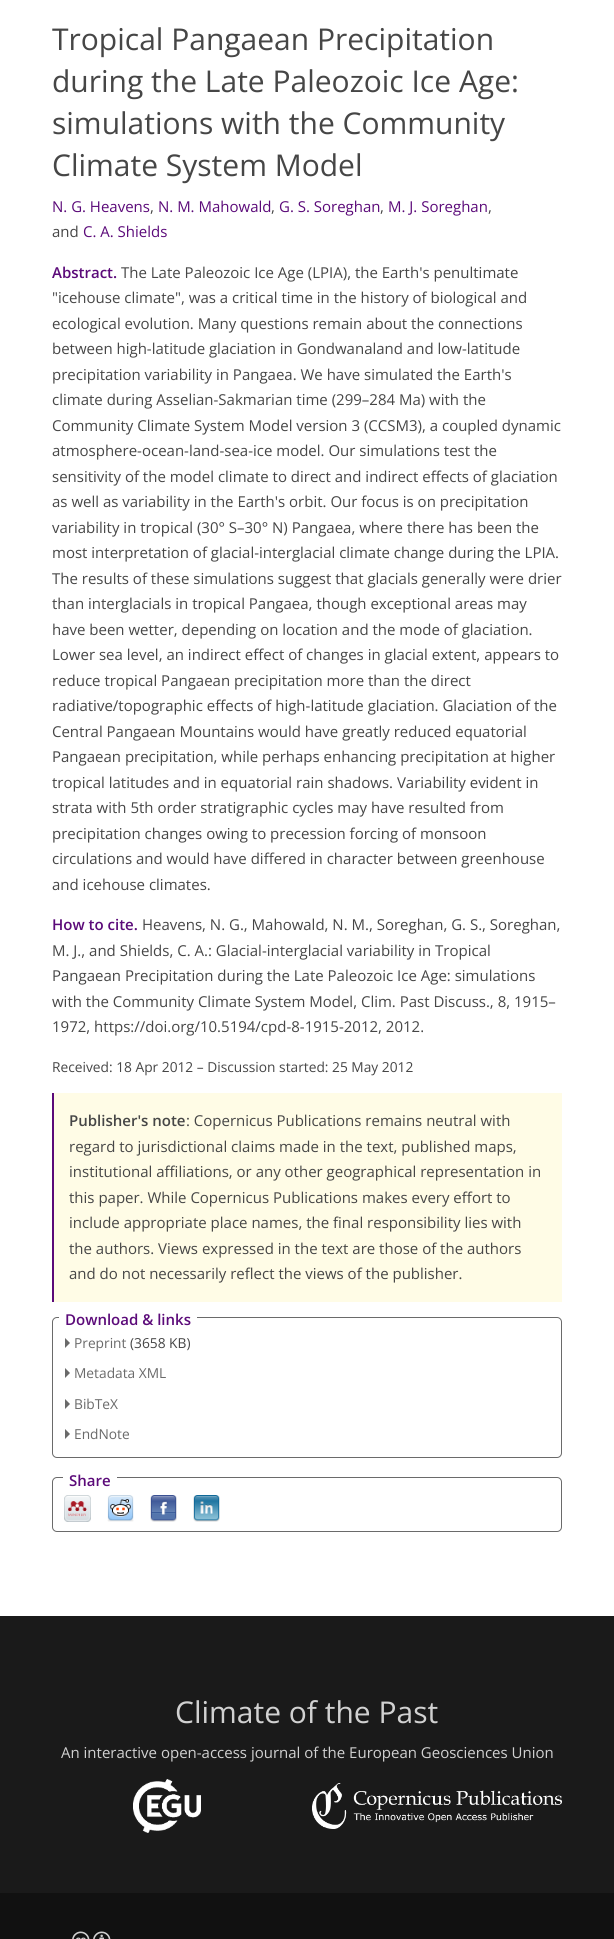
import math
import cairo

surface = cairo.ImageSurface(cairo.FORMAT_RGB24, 614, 1939)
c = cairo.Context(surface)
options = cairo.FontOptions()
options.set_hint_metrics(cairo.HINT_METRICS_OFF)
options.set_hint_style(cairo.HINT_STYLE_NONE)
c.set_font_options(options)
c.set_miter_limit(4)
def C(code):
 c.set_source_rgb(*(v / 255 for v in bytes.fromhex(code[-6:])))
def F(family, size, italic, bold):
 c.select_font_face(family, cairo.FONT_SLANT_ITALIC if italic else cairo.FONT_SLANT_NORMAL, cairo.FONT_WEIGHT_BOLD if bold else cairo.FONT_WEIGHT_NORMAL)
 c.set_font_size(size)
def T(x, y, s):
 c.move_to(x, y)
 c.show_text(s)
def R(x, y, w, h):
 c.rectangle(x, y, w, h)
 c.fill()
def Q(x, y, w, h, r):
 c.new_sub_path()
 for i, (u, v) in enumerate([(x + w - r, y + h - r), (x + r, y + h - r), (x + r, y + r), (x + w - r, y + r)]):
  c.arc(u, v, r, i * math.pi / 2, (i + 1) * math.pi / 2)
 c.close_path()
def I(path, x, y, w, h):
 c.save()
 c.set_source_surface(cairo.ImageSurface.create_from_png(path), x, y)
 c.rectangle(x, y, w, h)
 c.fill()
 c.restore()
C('ffffff')
c.paint()
F('Open Sans',30,0,0)
C('464646')
T(52,50,'Tropical Pangaean Precipitation')
T(52,92,'during the Late Paleozoic Ice Age:')
T(52,134,'simulations with the Community')
T(52,176,'Climate System Model')
F('Open Sans',15,0,0)
C('5b0a79')
T(52,212,'N. G. Heavens')
C('464646')
T(150,212,',')
C('5b0a79')
T(158,212,'N. M. Mahowald')
C('464646')
T(271,212,',')
C('5b0a79')
T(279,212,'G. S. Soreghan')
C('464646')
T(380,212,',')
C('5b0a79')
T(388,212,'M. J. Soreghan')
C('464646')
T(488,212,',')
T(52,237,'and')
C('5b0a79')
T(83,237,'C. A. Shields')
F('Open Sans SemiBold',15,0,0)
T(52,278,'Abstract.')
F('Open Sans',15,0,0)
C('464646')
T(121,278,'The Late Paleozoic Ice Age (LPIA), the Earth\'s penultimate')
T(52,303,'"icehouse climate", was a critical time in the history of biological and')
T(52,329,'ecological evolution. Many questions remain about the connections')
T(52,354,'between high-latitude glaciation in Gondwanaland and low-latitude')
T(52,380,'precipitation variability in Pangaea. We have simulated the Earth\'s')
T(52,405,'climate during Asselian-Sakmarian time (299–284 Ma) with the')
T(52,431,'Community Climate System Model version 3 (CCSM3), a coupled dynamic')
T(52,456,'atmosphere-ocean-land-sea-ice model. Our simulations test the')
T(52,482,'sensitivity of the model climate to direct and indirect effects of glaciation')
T(52,507,'as well as variability in the Earth\'s orbit. Our focus is on precipitation')
T(52,533,'variability in tropical (30° S–30° N) Pangaea, where there has been the')
T(52,558,'most interpretation of glacial-interglacial climate change during the LPIA.')
T(52,584,'The results of these simulations suggest that glacials generally were drier')
T(52,609,'than interglacials in tropical Pangaea, though exceptional areas may')
T(52,635,'have been wetter, depending on location and the mode of glaciation.')
T(52,660,'Lower sea level, an indirect effect of changes in glacial extent, appears to')
T(52,686,'reduce tropical Pangaean precipitation more than the direct')
T(52,711,'radiative/topographic effects of high-latitude glaciation. Glaciation of the')
T(52,737,'Central Pangaean Mountains would have greatly reduced equatorial')
T(52,762,'Pangaean precipitation, while perhaps enhancing precipitation at higher')
T(52,788,'tropical latitudes and in equatorial rain shadows. Variability evident in')
T(52,813,'strata with 5th order stratigraphic cycles may have resulted from')
T(52,839,'precipitation changes owing to precession forcing of monsoon')
T(52,864,'circulations and would have differed in character between greenhouse')
T(52,890,'and icehouse climates.')
F('Open Sans SemiBold',15,0,0)
C('5b0a79')
T(52,930,'How to cite.')
F('Open Sans',15,0,0)
C('464646')
T(142,930,'Heavens, N. G., Mahowald, N. M., Soreghan, G. S., Soreghan,')
T(52,956,'M. J., and Shields, C. A.: Glacial-interglacial variability in Tropical')
T(52,981,'Pangaean Precipitation during the Late Paleozoic Ice Age: simulations')
T(52,1007,'with the Community Climate System Model, Clim. Past Discuss., 8, 1915–')
T(52,1032,'1972, https://doi.org/10.5194/cpd-8-1915-2012, 2012.')
F('Open Sans',13.75,0,0)
T(52,1072,'Received: 18 Apr 2012 – Discussion started: 25 May 2012')
C('fffce6')
R(54,1093,508,209)
C('5b0a79')
R(52,1093,2,209)
F('Open Sans SemiBold',15,0,0)
C('464646')
T(69,1126,'Publisher\'s note')
F('Open Sans',15,0,0)
T(186,1126,': Copernicus Publications remains neutral with')
T(69,1152,'regard to jurisdictional claims made in the text, published maps,')
T(69,1177,'institutional affiliations, or any other geographical representation in')
T(69,1203,'this paper. While Copernicus Publications makes every effort to')
T(69,1228,'include appropriate place names, the final responsibility lies with')
T(69,1254,'the authors. Views expressed in the text are those of the authors')
T(69,1279,'and do not necessarily reflect the views of the publisher.')
Q(52.5,1317.5,509,140,4.5)
C('6a6a6a')
c.set_line_width(1)
c.stroke()
C('ffffff')
R(59,1317,138,1)
F('Open Sans SemiBold',15,0,0)
C('5b0a79')
T(65,1325,'Download & links')
C('6a6a6a')
c.new_path()
c.move_to(65,1348)
c.line_to(65,1338)
c.line_to(70,1343)
c.close_path()
c.move_to(65,1378)
c.line_to(65,1368)
c.line_to(70,1373)
c.close_path()
c.fill()
F('Open Sans',13.75,0,0)
T(74,1348,'Preprint')
C('464646')
T(130,1348,'(3658 KB)')
C('6a6a6a')
T(74,1378,'Metadata XML')
c.new_path()
c.move_to(65,1409)
c.line_to(65,1399)
c.line_to(70,1404)
c.close_path()
c.move_to(65,1439)
c.line_to(65,1429)
c.line_to(70,1434)
c.close_path()
c.fill()
T(74,1409,'BibTeX')
T(74,1439,'EndNote')
Q(52.5,1477.5,509,54,4.5)
c.stroke()
C('ffffff')
R(63,1477,54,1)
F('Open Sans SemiBold',15,0,0)
C('5b0a79')
T(69,1486,'Share')
I('1.png',64,1495,27,27)
I('2.png',107,1495,27,27)
I('3.png',150,1495,27,27)
I('4.png',193,1495,27,27)
C('1a1a1a')
R(0,1616,614,277)
F('Open Sans',30,0,0)
C('d1d1d1')
T(175,1723,'Climate of the Past')
F('Open Sans',15,0,0)
T(61,1758,'An interactive open-access journal of the European Geosciences Union')
I('5.png',133,1779,68,54)
I('6.png',312,1783,250,46)
C('111111')
R(0,1893,614,46)
I('7.png',72,1931,18,8)
I('8.png',93,1931,18,8)
surface.write_to_png('o.png')
